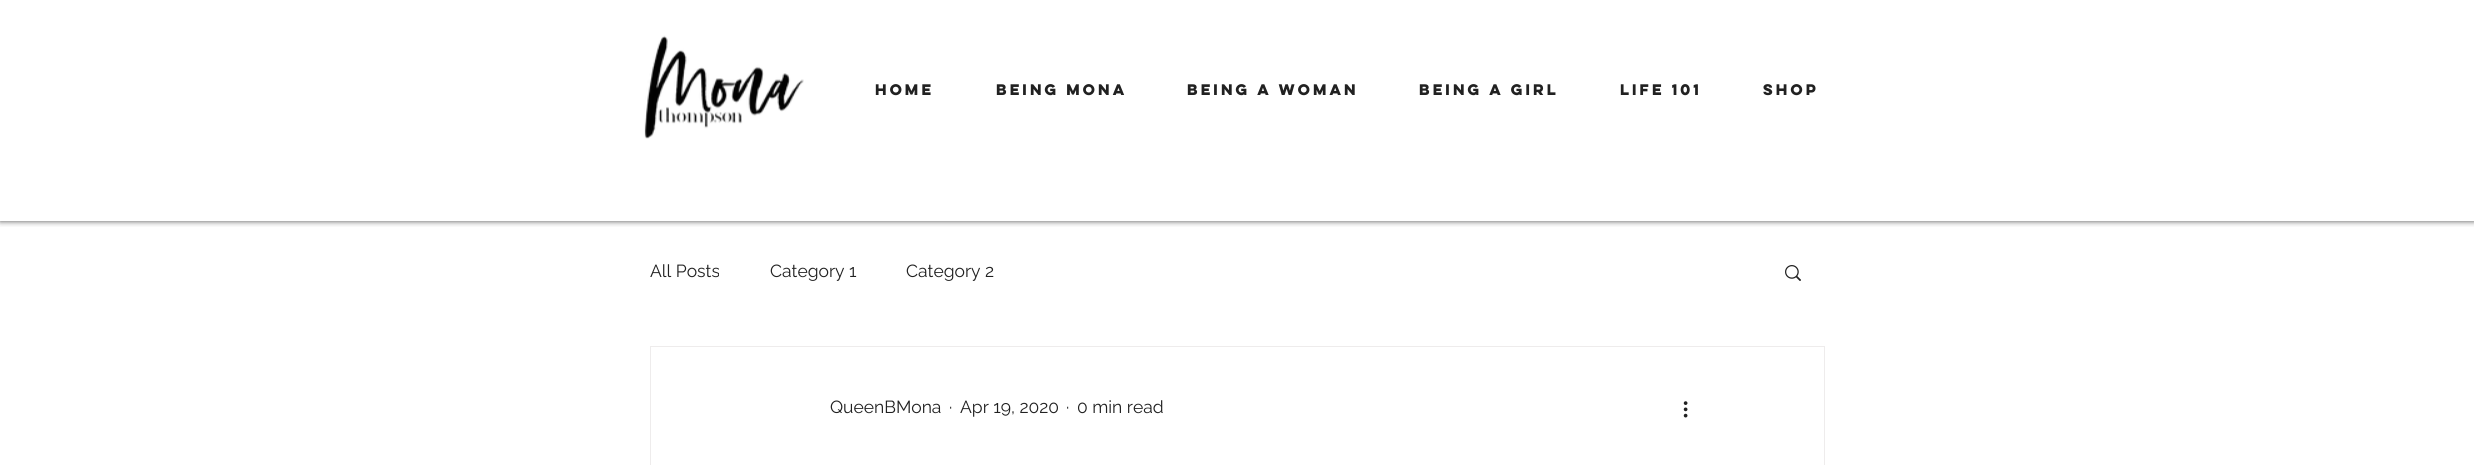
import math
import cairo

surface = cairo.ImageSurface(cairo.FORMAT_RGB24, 2474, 465)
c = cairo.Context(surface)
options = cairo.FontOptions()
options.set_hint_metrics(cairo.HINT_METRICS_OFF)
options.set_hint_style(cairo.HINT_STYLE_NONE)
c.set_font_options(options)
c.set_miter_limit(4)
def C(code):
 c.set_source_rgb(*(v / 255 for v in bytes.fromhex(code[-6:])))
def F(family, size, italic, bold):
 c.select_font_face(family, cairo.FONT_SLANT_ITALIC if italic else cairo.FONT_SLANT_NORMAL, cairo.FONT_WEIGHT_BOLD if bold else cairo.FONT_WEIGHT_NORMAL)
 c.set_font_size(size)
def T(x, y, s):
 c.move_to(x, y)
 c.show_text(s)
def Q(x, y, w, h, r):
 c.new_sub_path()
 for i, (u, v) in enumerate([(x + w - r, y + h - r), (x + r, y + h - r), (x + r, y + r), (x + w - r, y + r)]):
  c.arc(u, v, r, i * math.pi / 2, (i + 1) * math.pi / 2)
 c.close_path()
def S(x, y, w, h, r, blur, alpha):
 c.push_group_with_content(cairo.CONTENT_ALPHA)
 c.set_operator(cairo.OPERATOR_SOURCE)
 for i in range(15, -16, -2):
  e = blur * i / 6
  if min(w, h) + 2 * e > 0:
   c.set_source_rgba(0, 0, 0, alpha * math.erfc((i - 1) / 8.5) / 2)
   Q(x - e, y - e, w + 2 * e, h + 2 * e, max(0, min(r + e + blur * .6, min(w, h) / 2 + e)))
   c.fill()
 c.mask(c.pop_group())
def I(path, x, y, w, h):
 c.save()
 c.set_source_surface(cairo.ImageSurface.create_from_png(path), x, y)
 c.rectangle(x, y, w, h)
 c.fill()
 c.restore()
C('ffffff')
c.paint()
c.save()
c.rectangle(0,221,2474,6)
c.clip()
C('000000')
S(0,0,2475,221,0,3,.7)
c.restore()
I('1.png',644,35,160,104)
F('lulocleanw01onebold',13.75,0,1)
C('212121')
T(875,95,'HOME')
T(996,95,'BEING MONA')
T(1187,95,'BEING A WOMAN')
T(1419,95,'BEING A GIRL')
T(1620,95,'LIFE 101')
T(1763,95,'SHOP')
F('Raleway',17.5,0,0)
T(650,277,'All Posts')
T(770,277,'Category 1')
T(906,277,'Category 2')
I('2.png',1785,265,16,16)
c.rectangle(650.5,346.5,1174,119)
C('eeecec')
c.set_line_width(1)
c.stroke()
C('212121')
T(830,413,'QueenBMona')
T(949,413,'·')
T(960,413,'Apr 19, 2020')
T(1066,413,'·')
T(1077,413,'0 min read')
I('3.png',1683,401,5,17)
surface.write_to_png('o.png')
